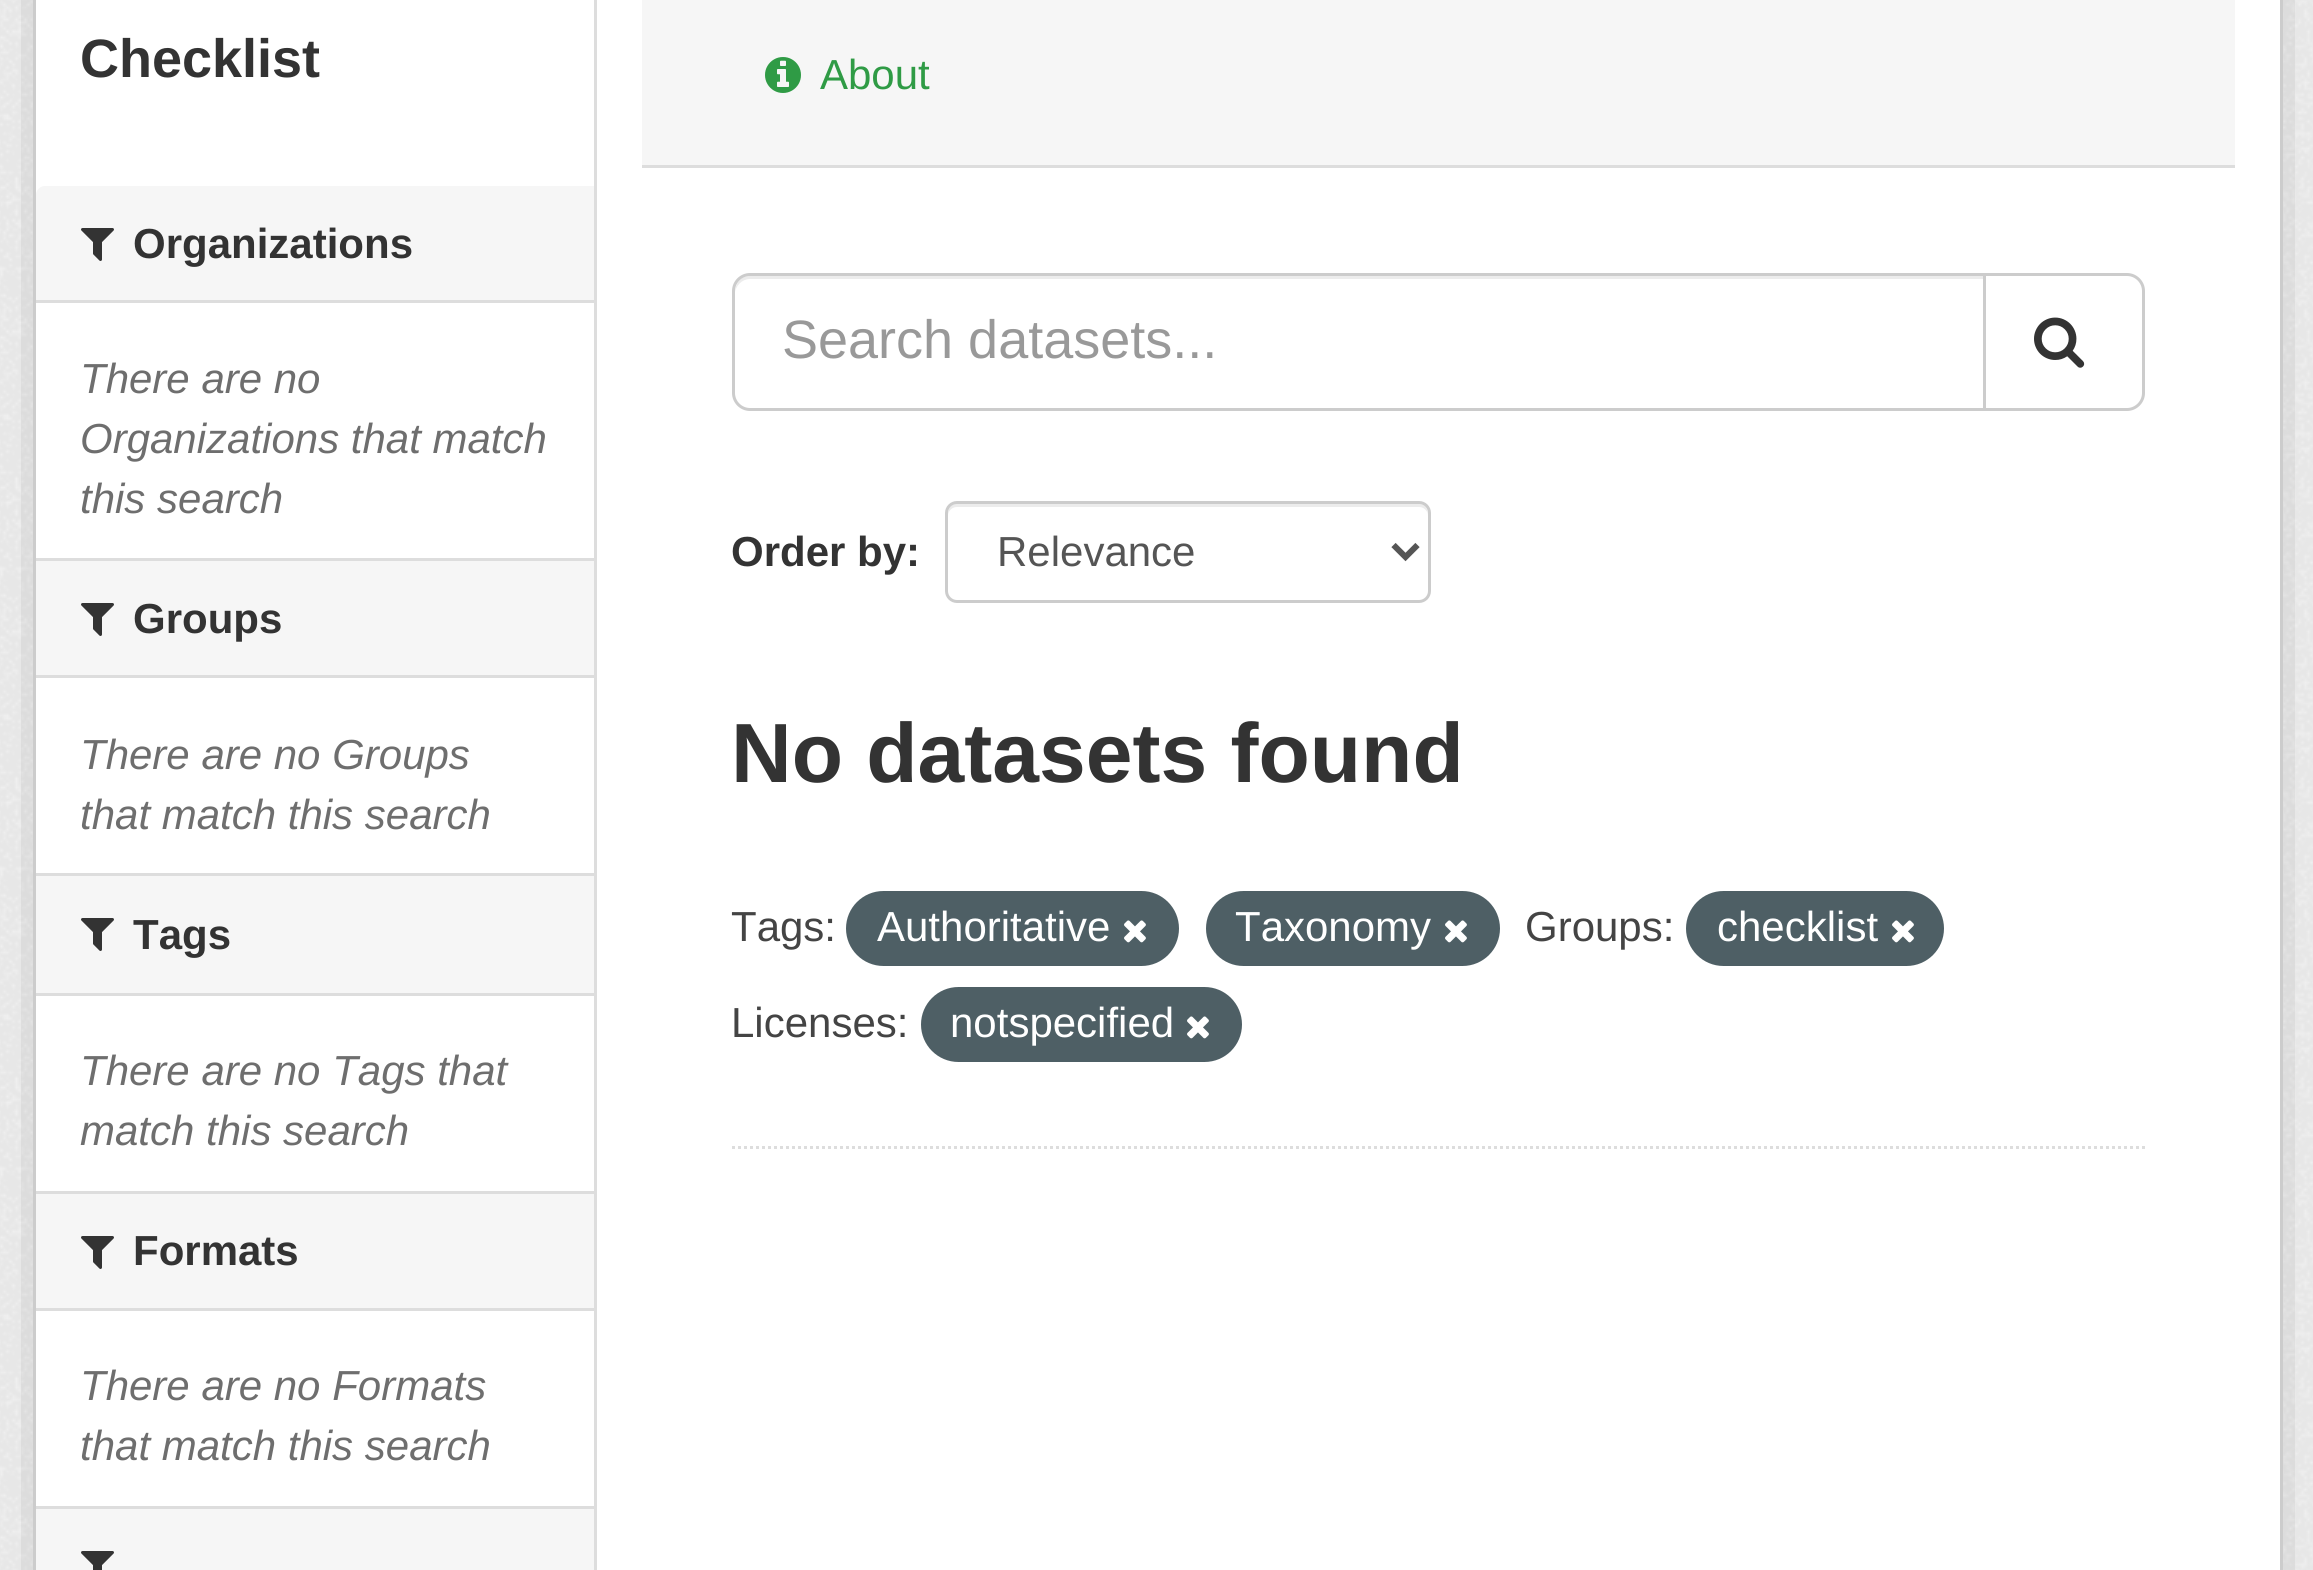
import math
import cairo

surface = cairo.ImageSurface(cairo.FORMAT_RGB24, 2313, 1570)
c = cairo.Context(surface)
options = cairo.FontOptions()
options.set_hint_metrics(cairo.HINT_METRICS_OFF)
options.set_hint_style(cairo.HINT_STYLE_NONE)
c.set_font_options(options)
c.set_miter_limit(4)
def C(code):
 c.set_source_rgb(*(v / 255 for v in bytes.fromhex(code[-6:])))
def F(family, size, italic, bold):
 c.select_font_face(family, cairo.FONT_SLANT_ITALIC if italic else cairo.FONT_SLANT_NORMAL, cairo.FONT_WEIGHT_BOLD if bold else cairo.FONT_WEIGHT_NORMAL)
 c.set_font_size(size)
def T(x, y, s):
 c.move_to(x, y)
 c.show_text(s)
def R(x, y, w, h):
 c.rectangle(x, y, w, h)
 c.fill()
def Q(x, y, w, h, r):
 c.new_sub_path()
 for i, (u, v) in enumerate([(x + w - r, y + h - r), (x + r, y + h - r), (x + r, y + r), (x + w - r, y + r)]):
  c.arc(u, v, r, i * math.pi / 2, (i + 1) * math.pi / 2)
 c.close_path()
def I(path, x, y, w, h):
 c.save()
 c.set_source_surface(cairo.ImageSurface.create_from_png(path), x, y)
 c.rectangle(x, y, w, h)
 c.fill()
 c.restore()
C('eeeeee')
c.paint()
I('1.png',0,0,2313,1570)
c.rectangle(27,-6,2262,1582)
c.set_source_rgba(0,0,0,0.05)
c.set_line_width(12)
c.stroke()
C('ffffff')
c.rectangle(34.5,-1.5,2247,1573)
c.fill_preserve()
C('cccccc')
c.set_line_width(3)
c.stroke()
F('Liberation Sans',54,0,1)
C('333333')
T(80,77,'Checklist')
C('f6f6f6')
c.new_path()
c.move_to(45,186)
c.line_to(594,186)
c.line_to(594,303)
c.line_to(36,303)
c.line_to(36,195)
c.curve_to(36,190,40,186,45,186)
c.close_path()
c.fill()
C('dddddd')
R(36,300,558,3)
I('2.png',81,228,33,33)
F('Liberation Sans',42,0,1)
C('333333')
T(133,258,'Organizations')
F('Liberation Sans',42,1,0)
C('6e6e6e')
T(80,393,'There are no')
T(80,453,'Organizations that match')
T(80,513,'this search')
C('f6f6f6')
R(36,561,558,114)
C('dddddd')
R(36,558,558,3)
R(36,675,558,3)
I('2.png',81,603,33,33)
F('Liberation Sans',42,0,1)
C('333333')
T(133,633,'Groups')
F('Liberation Sans',42,1,0)
C('6e6e6e')
T(80,769,'There are no Groups')
T(80,829,'that match this search')
C('f6f6f6')
R(36,876,558,117)
C('dddddd')
R(36,873,558,3)
R(36,993,558,3)
I('2.png',81,918,33,33)
F('Liberation Sans',42,0,1)
C('333333')
T(133,949,'Tags')
F('Liberation Sans',42,1,0)
C('6e6e6e')
T(80,1085,'There are no Tags that')
T(80,1145,'match this search')
C('f6f6f6')
R(36,1194,558,114)
C('dddddd')
R(36,1191,558,3)
R(36,1308,558,3)
I('2.png',81,1236,33,33)
F('Liberation Sans',42,0,1)
C('333333')
T(133,1265,'Formats')
F('Liberation Sans',42,1,0)
C('6e6e6e')
T(80,1400,'There are no Formats')
T(80,1460,'that match this search')
C('f6f6f6')
R(36,1509,558,61)
C('dddddd')
R(36,1506,558,3)
I('3.png',81,1551,33,19)
R(594,0,3,1570)
C('f6f6f6')
R(642,0,1593,165)
C('dddddd')
R(642,165,1593,3)
I('4.png',765,57,36,36)
F('Liberation Sans',42,0,0)
C('2f9b45')
T(820,89,'About')
c.new_path()
c.move_to(732,1147.5)
c.line_to(2145,1147.5)
C('dddddd')
c.set_dash([3,3])
c.stroke()
C('ececec')
c.new_path()
c.move_to(750,279)
c.line_to(1983,279)
c.line_to(1983,276)
c.line_to(750,276)
c.curve_to(739,276,735,285,735,294)
c.curve_to(735,286,742,279,750,279)
c.close_path()
c.fill()
c.new_path()
c.move_to(750,274.5)
c.line_to(1984.5,274.5)
c.line_to(1984.5,409.5)
c.line_to(750,409.5)
c.curve_to(741,409.5,733.5,402,733.5,393)
c.line_to(733.5,291)
c.curve_to(733.5,282,741,274.5,750,274.5)
c.close_path()
C('cccccc')
c.set_dash([])
c.stroke()
F('Liberation Sans',54,0,0)
C('999999')
T(782,358,'Search datasets...')
C('ffffff')
c.new_path()
c.move_to(1984.5,274.5)
c.line_to(2127,274.5)
c.curve_to(2136,274.5,2143.5,282,2143.5,291)
c.line_to(2143.5,393)
c.curve_to(2143.5,402,2136,409.5,2127,409.5)
c.line_to(1984.5,409.5)
c.close_path()
c.fill_preserve()
C('cccccc')
c.stroke()
I('5.png',2034,317,51,51)
F('Liberation Sans',42,0,1)
C('333333')
T(731,566,'Order by:')
C('ececec')
c.new_path()
c.move_to(957,507)
c.line_to(1419,507)
c.curve_to(1424,507,1428,511,1428,516)
c.curve_to(1428,510,1426,504,1419,504)
c.line_to(955,504)
c.curve_to(949,505,948,511,948,516)
c.curve_to(948,511,952,507,957,507)
c.close_path()
c.fill()
Q(946.5,502.5,483,99,10.5)
C('cccccc')
c.stroke()
c.new_path()
c.move_to(1393.5,545)
c.line_to(1405.5,557)
c.line_to(1417.5,545)
C('555555')
c.set_line_width(6)
c.stroke()
F('Liberation Sans',42,0,0)
T(997,566,'Relevance')
F('Liberation Sans',84,0,1)
C('333333')
T(731,782,'No datasets found')
F('Liberation Sans',42,0,0)
C('444444')
T(731,941,'Tags:')
C('4e5f65')
Q(846,891,333,75,37.5)
c.fill()
C('ffffff')
T(877,941,'Authoritative')
I('6.png',1124,920,22,23)
C('4e5f65')
Q(1206,891,294,75,37.5)
c.fill()
C('ffffff')
T(1235,941,'Taxonomy')
I('6.png',1445,920,22,23)
C('444444')
T(1525,941,'Groups:')
C('4e5f65')
Q(1686,891,258,75,37.5)
c.fill()
C('ffffff')
T(1717,941,'checklist')
I('6.png',1892,920,22,23)
C('444444')
T(731,1037,'Licenses:')
C('4e5f65')
Q(921,987,321,75,37.5)
c.fill()
C('ffffff')
T(950,1037,'notspecified')
I('6.png',1187,1016,22,23)
surface.write_to_png('o.png')
